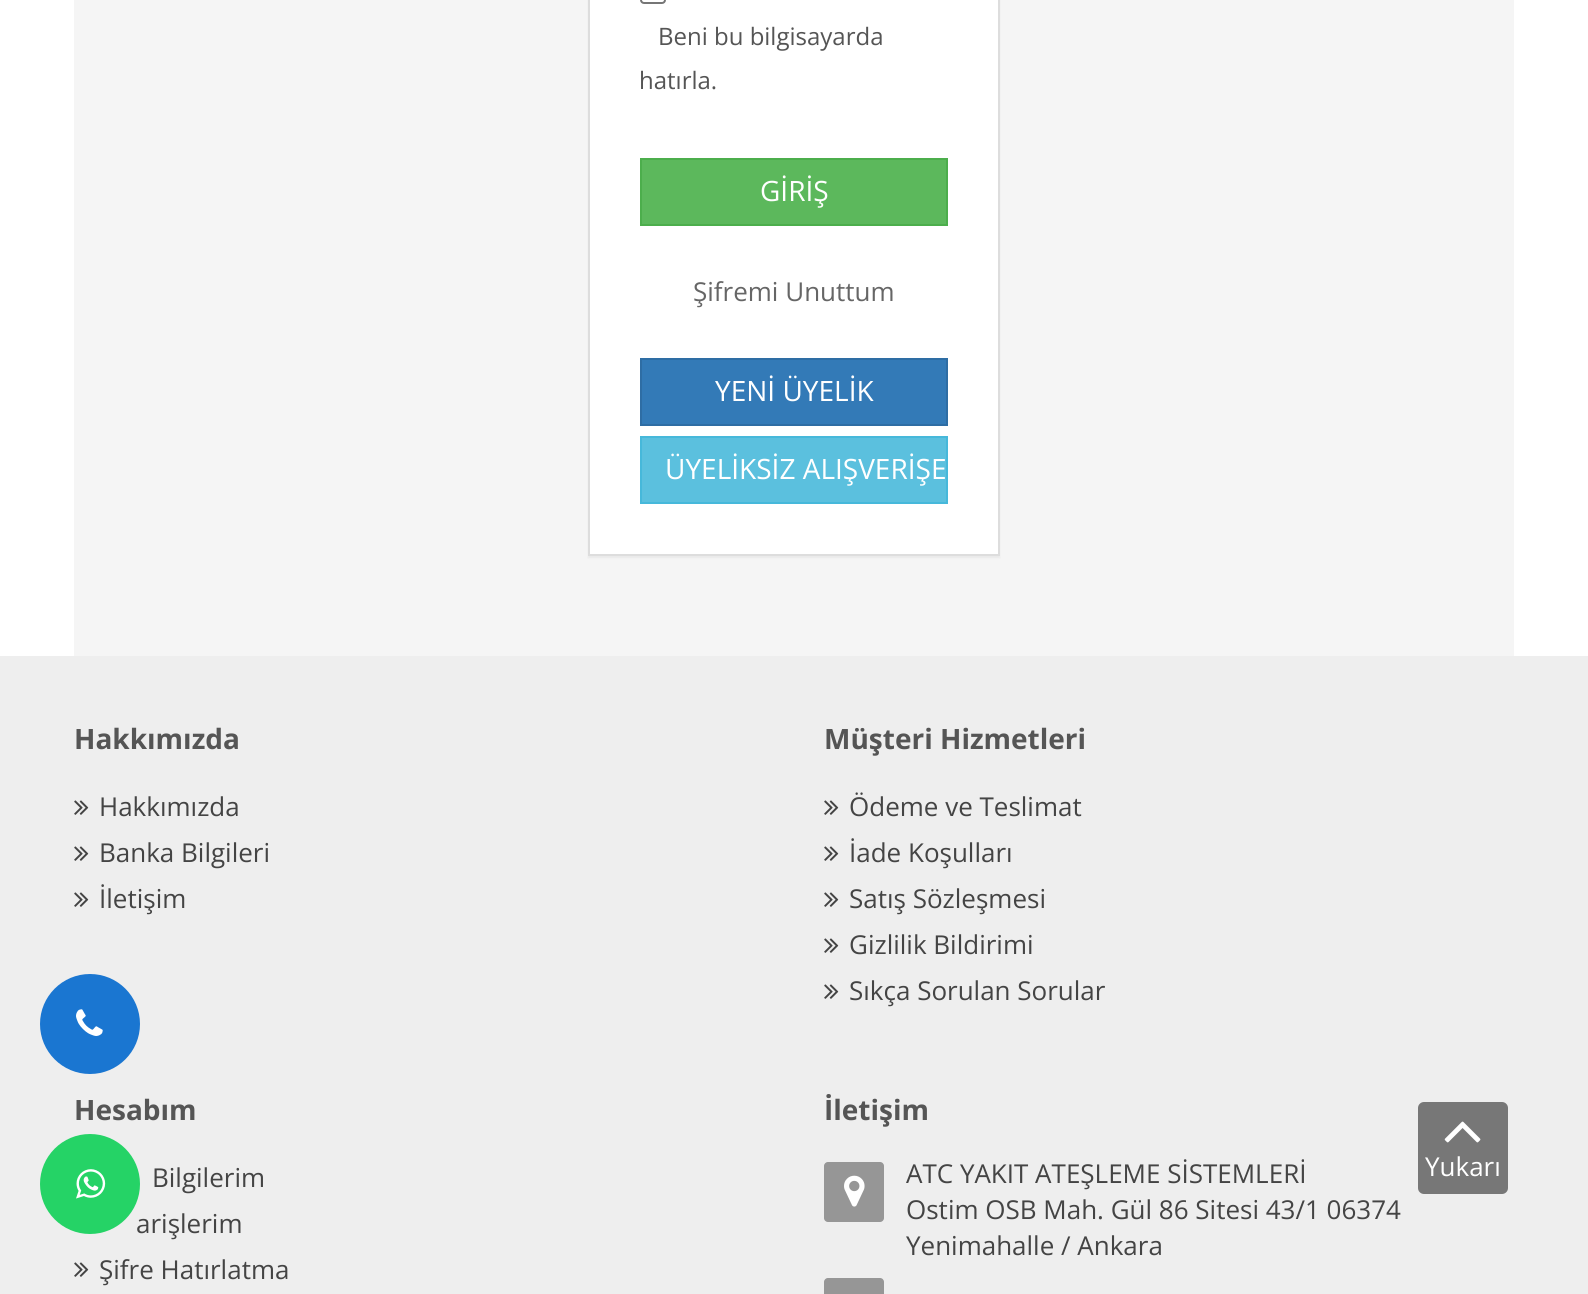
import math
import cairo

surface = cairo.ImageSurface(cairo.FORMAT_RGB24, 1588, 1294)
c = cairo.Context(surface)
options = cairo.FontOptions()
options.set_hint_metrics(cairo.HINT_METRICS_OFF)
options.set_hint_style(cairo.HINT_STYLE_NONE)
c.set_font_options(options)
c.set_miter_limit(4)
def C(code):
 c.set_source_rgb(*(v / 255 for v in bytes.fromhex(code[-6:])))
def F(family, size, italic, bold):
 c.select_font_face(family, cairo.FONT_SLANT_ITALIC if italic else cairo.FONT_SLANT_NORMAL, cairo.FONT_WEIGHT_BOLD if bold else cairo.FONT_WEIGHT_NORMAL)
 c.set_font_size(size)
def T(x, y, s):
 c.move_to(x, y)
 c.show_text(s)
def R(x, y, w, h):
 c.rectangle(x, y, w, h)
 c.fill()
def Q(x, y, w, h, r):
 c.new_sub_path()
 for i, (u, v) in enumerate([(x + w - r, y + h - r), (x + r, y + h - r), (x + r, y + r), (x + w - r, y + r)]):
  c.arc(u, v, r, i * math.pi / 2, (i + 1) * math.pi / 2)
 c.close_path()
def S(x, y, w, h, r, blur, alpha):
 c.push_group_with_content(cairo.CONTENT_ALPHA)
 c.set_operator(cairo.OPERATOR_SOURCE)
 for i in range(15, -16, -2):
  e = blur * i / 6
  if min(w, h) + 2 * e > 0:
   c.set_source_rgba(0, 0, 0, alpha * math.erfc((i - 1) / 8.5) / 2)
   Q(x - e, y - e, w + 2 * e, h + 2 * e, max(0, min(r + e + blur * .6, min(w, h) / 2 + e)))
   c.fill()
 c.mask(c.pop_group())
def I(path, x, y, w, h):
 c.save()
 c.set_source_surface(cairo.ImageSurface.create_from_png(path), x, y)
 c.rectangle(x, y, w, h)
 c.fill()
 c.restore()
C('ffffff')
c.paint()
C('f5f5f5')
R(74,0,1440,656)
C('000000')
S(588,-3,412,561,0,1,.05)
C('ffffff')
c.rectangle(589,-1,410,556)
c.fill_preserve()
C('dddddd')
c.stroke()
Q(641,-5,24,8,3)
C('767676')
c.stroke()
F('Open Sans',24,0,0)
C('555555')
T(658,45,'Beni bu bilgisayarda')
T(639,89,'hatırla.')
C('5cb85c')
c.rectangle(641,159,306,66)
c.fill_preserve()
C('4cae4c')
c.stroke()
F('Open Sans',28,0,0)
C('ffffff')
T(760,201,'GİRİŞ')
F('Open Sans',26,0,0)
C('666666')
T(693,301,'Şifremi Unuttum')
C('337ab7')
c.rectangle(641,359,306,66)
c.fill_preserve()
C('2e6da4')
c.stroke()
F('Open Sans',28,0,0)
C('ffffff')
T(715,401,'YENİ ÜYELİK')
C('5bc0de')
c.rectangle(641,437,306,66)
c.fill_preserve()
C('46b8da')
c.stroke()
C('ffffff')
T(665,479,'ÜYELİKSİZ ALIŞVERİŞE')
C('eeeeee')
R(0,656,1588,638)
F('Open Sans',28,0,1)
C('555555')
T(74,749,'Hakkımızda')
I('1.png',74,800,15,15)
F('Open Sans',26,0,0)
C('444444')
T(99,816,'Hakkımızda')
I('1.png',74,846,15,15)
T(99,862,'Banka Bilgileri')
I('1.png',74,892,15,15)
T(99,908,'İletişim')
F('Open Sans',28,0,1)
C('555555')
T(824,749,'Müşteri Hizmetleri')
I('1.png',824,800,15,15)
F('Open Sans',26,0,0)
C('444444')
T(849,816,'Ödeme ve Teslimat')
I('1.png',824,846,15,15)
T(849,862,'İade Koşulları')
I('1.png',824,892,15,15)
T(849,908,'Satış Sözleşmesi')
I('1.png',824,938,15,15)
T(849,954,'Gizlilik Bildirimi')
I('1.png',824,984,15,15)
T(849,1000,'Sıkça Sorulan Sorular')
F('Open Sans',28,0,1)
C('555555')
T(74,1120,'Hesabım')
F('Open Sans',26,0,0)
C('444444')
T(152,1187,'Bilgilerim')
T(136,1233,'arişlerim')
I('1.png',74,1262,15,15)
T(99,1279,'Şifre Hatırlatma')
F('Open Sans',28,0,1)
C('555555')
T(824,1120,'İletişim')
C('969696')
Q(824,1162,60,60,4)
c.fill()
I('2.png',844,1175,21,32)
F('Open Sans',26,0,0)
C('444444')
T(906,1183,'ATC YAKIT ATEŞLEME SİSTEMLERİ')
T(906,1219,'Ostim OSB Mah. Gül 86 Sitesi 43/1 06374')
T(906,1255,'Yenimahalle / Ankara')
C('969696')
Q(824,1278,60,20,4)
c.fill()
C('777777')
Q(1418,1102,90,92,6)
c.fill()
I('3.png',1444,1121,37,22)
C('ffffff')
T(1425,1176,'Yukarı')
C('1a76d1')
c.new_path()
c.arc(90,1024,50,0,2 * math.pi)
c.fill()
I('4.png',76,1009,27,27)
C('25d366')
c.arc(90,1184,50,0,2 * math.pi)
c.fill()
I('5.png',76,1169,30,30)
surface.write_to_png('o.png')
